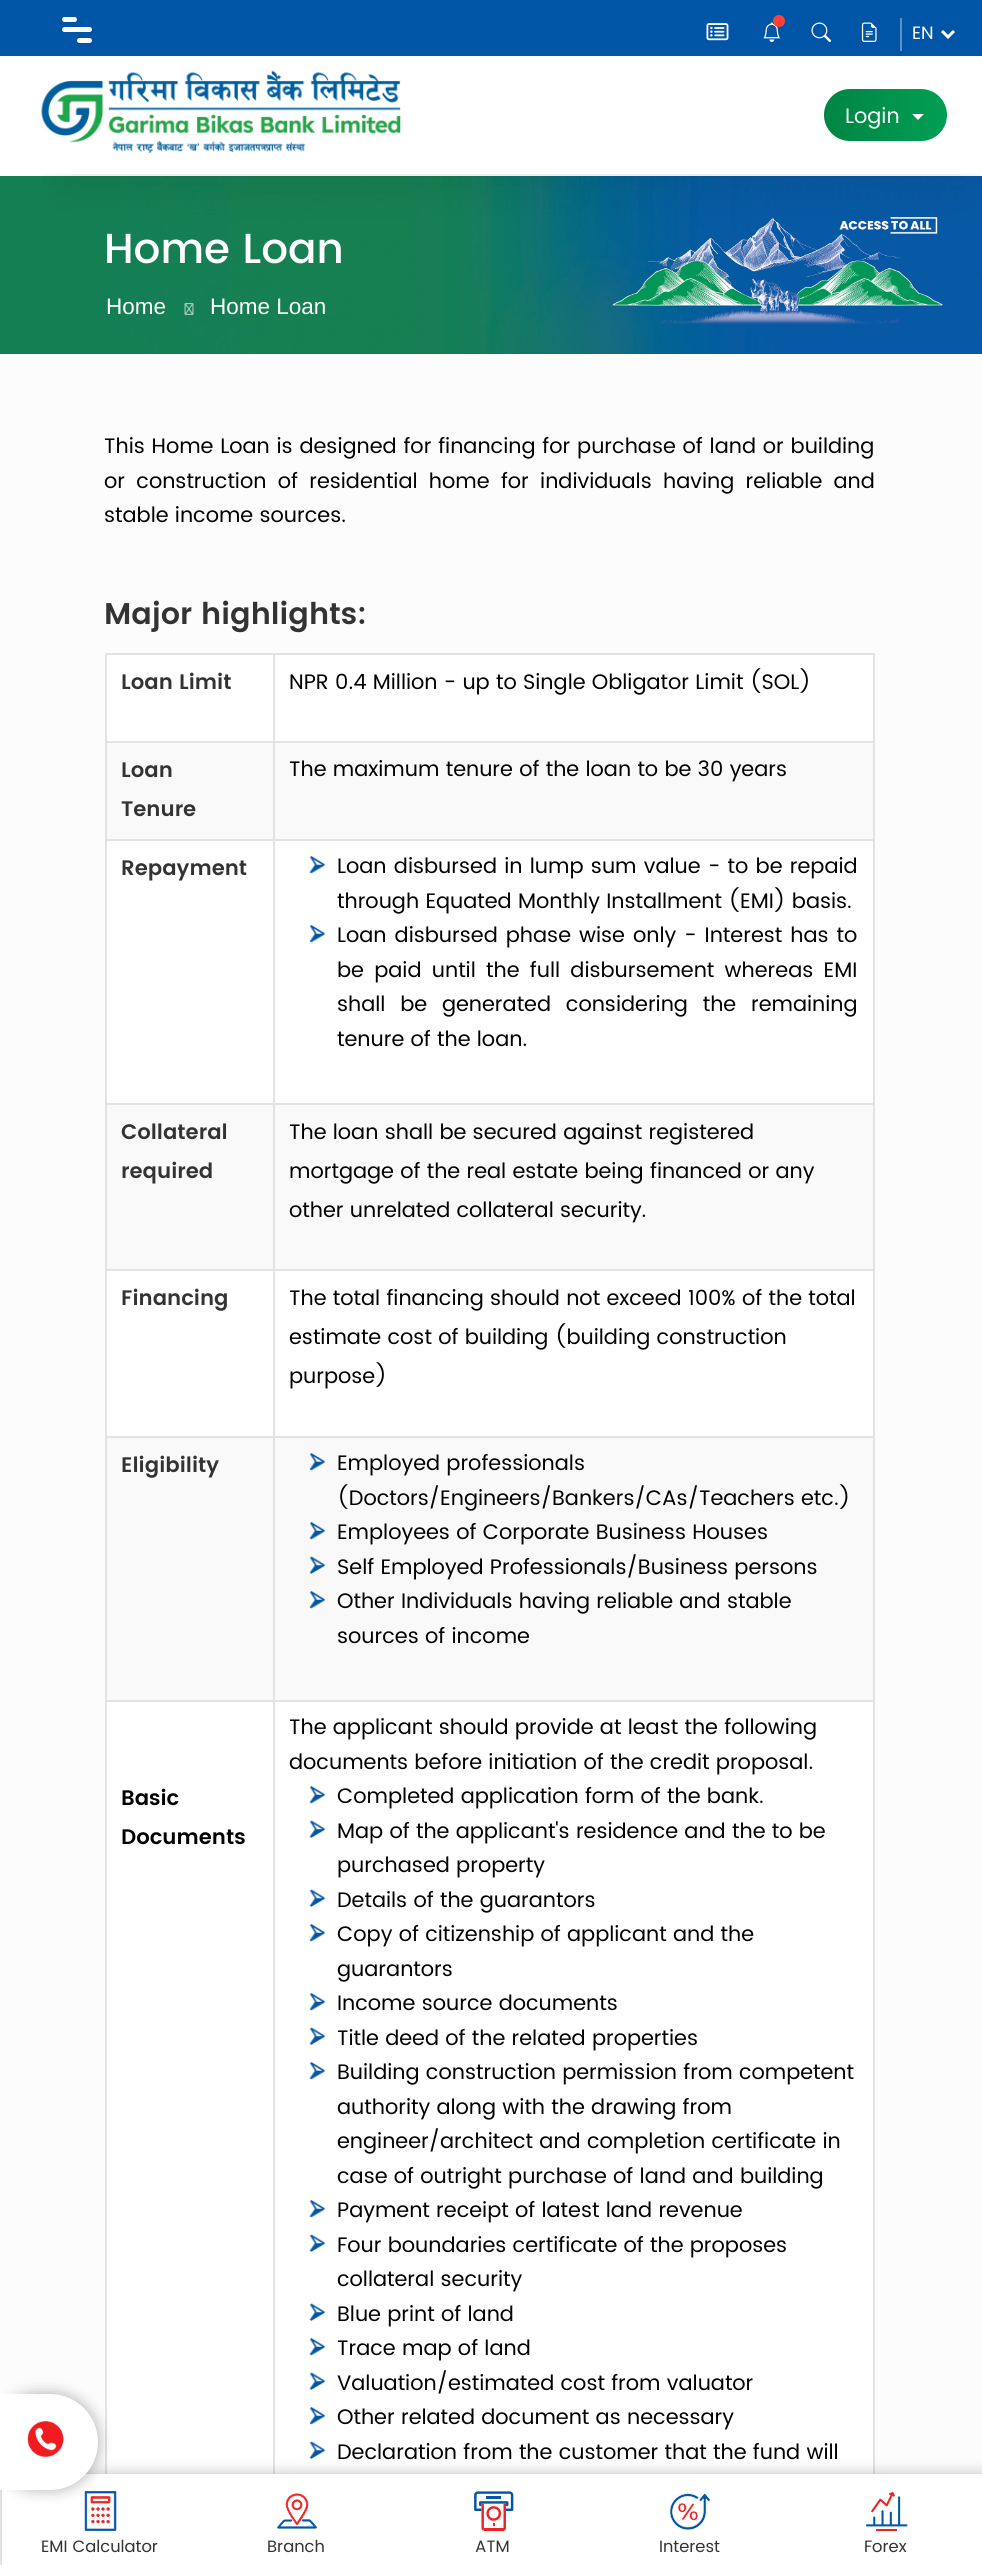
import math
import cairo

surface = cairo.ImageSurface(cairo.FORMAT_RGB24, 982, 2565)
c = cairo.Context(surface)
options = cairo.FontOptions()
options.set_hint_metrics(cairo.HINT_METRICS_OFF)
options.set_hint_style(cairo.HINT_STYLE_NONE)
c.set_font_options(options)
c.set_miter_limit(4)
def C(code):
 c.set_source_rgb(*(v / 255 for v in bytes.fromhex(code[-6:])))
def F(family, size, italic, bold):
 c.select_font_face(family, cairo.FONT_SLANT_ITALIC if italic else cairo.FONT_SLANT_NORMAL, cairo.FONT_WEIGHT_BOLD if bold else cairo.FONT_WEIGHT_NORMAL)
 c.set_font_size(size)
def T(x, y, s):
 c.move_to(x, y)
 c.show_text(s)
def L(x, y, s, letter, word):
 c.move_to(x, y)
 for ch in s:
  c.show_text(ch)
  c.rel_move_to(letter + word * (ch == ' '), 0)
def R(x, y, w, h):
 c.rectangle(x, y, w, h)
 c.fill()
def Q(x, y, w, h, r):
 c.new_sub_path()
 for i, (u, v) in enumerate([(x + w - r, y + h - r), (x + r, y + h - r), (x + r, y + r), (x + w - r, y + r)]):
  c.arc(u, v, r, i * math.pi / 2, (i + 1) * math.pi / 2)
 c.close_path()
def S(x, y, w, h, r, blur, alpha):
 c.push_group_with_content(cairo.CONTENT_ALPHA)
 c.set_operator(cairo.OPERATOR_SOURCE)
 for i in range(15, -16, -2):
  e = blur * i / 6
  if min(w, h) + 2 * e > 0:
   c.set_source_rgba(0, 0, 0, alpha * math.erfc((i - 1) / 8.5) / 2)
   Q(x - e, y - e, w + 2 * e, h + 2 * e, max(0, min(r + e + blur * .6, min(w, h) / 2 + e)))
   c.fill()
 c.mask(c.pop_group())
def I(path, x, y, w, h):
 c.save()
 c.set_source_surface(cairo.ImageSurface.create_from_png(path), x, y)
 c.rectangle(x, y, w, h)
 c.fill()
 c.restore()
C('fcfcfc')
c.paint()
C('0055a6')
R(0,0,982,56)
I('1.png',706,23,23,18)
I('2.png',763,22,18,20)
C('ff4139')
c.arc(779,21,6,0,2 * math.pi)
c.fill()
I('3.png',811,22,20,20)
I('4.png',861,22,16,20)
C('5d90c4')
R(900,18,2,33)
c.new_path()
c.move_to(942,31)
c.line_to(948,37)
c.line_to(954,31)
C('ffffff')
c.set_line_width(3)
c.stroke()
F('Poppins',18,0,0)
T(912,39,'EN')
R(0,56,982,120)
I('5.png',41,70,360,83)
Q(62,17,15,5,2.5)
c.fill()
Q(62,27,30,5,2.5)
c.fill()
C('147f53')
R(0,176,53,178)
I('7.png',52,176,930,178)
c.save()
c.rectangle(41,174,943,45)
c.clip()
C('000000')
S(48,107,929,75,37.5,22.5,.1)
c.restore()
C('ffffff')
Q(77,38,15,5,2.5)
c.fill()
gradient = cairo.LinearGradient(824,115,947,115)
gradient.add_color_stop_rgba(0,0,0.518,0.267,1)
gradient.add_color_stop_rgba(1,0.004,0.624,0.325,1)
c.set_source(gradient)
Q(824,89,123,52,26)
c.fill()
F('Poppins',21,0,0)
C('ffffff')
T(845,123,'Login')
c.new_path()
c.move_to(912,114)
c.line_to(924,114)
c.line_to(918,120)
c.close_path()
c.fill()
R(107,655,766,1819)
C('e3e3e3')
R(105,653,770,2)
R(105,653,2,1821)
R(873,653,2,1821)
R(105,741,770,2)
R(105,839,770,2)
R(105,1103,770,2)
R(105,1269,770,2)
R(105,1436,770,2)
R(105,1700,770,2)
R(273,653,2,1821)
I('13.png',309,2441,16,18)
C('000000')
S(2,2474,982,91,0,7.5,.25)
C('ffffff')
R(2,2474,980,91)
I('14.png',84,2491,33,40)
C('000000')
S(-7,2394,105,96,48,7.5,.31)
C('ffffff')
c.new_path()
c.move_to(-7,2394)
c.line_to(50,2394)
c.curve_to(76.5,2394,98,2415.5,98,2442)
c.curve_to(98,2468.5,76.5,2490,50,2490)
c.line_to(-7,2490)
c.close_path()
c.fill()
I('6.png',27,2421,37,36)
F('Poppins Medium',42,0,0)
T(104,263,'Home Loan')
F('Liberation Sans',22.5,0,0)
T(106,314,'Home')
I('8.png',184,303,10,12)
T(210,314,'Home Loan')
F('Poppins',21,0,0)
C('000000')
L(104,453,'This Home Loan is designed for financing for purchase of land or building',0,.5)
L(104,488,'or construction of residential home for individuals having reliable and',0,5)
T(104,522,'stable income sources.')
F('Poppins SemiBold',30,0,0)
C('333333')
T(104,624,'Major highlights:')
F('Poppins SemiBold',21,0,0)
T(121,689,'Loan Limit')
F('Poppins',21,0,0)
C('000000')
T(289,689,'NPR 0.4 Million - up to Single Obligator Limit (SOL)')
C('f9f9f9')
R(107,743,166,96)
F('Poppins SemiBold',21,0,0)
C('333333')
T(121,777,'Loan')
T(121,816,'Tenure')
C('f9f9f9')
R(275,743,598,96)
F('Poppins',21,0,0)
C('000000')
T(289,776,'The maximum tenure of the loan to be 30 years')
F('Poppins SemiBold',21,0,0)
C('333333')
T(121,875,'Repayment')
I('9.png',309,856,16,18)
F('Poppins',21,0,0)
C('000000')
L(337,873,'Loan disbursed in lump sum value - to be repaid',0,1)
T(337,908,'through Equated Monthly Installment (EMI) basis.')
I('9.png',309,925,16,18)
L(337,942,'Loan disbursed phase wise only - Interest has to',0,1.75)
L(337,977,'be paid until the full disbursement whereas EMI',0,4)
L(337,1011,'shall be generated considering the remaining',0,8.5)
T(337,1046,'tenure of the loan.')
C('f9f9f9')
R(107,1105,166,164)
F('Poppins SemiBold',21,0,0)
C('333333')
T(121,1139,'Collateral')
T(121,1178,'required')
C('f9f9f9')
R(275,1105,598,164)
F('Poppins',21,0,0)
C('000000')
T(289,1139,'The loan shall be secured against registered')
T(289,1178,'mortgage of the real estate being financed or any')
T(289,1217,'other unrelated collateral security.')
F('Poppins SemiBold',21,0,0)
C('333333')
T(121,1305,'Financing')
F('Poppins',21,0,0)
C('000000')
T(289,1305,'The total financing should not exceed 100% of the total')
T(289,1344,'estimate cost of building (building construction')
T(289,1383,'purpose)')
C('f9f9f9')
R(107,1438,166,262)
F('Poppins SemiBold',21,0,0)
C('333333')
T(121,1472,'Eligibility')
C('f9f9f9')
R(275,1438,598,262)
I('10.png',309,1453,16,18)
F('Poppins',21,0,0)
C('000000')
T(337,1470,'Employed professionals')
T(337,1505,'(Doctors/Engineers/Bankers/CAs/Teachers etc.)')
I('10.png',309,1522,16,18)
T(337,1539,'Employees of Corporate Business Houses')
I('11.png',309,1556,16,18)
T(337,1574,'Self Employed Professionals/Business persons')
I('10.png',309,1591,16,18)
T(337,1608,'Other Individuals having reliable and stable')
T(337,1643,'sources of income')
F('Poppins SemiBold',21,0,0)
T(121,1805,'Basic')
T(121,1844,'Documents')
F('Poppins',21,0,0)
T(289,1734,'The applicant should provide at least the following')
T(289,1769,'documents before initiation of the credit proposal.')
I('9.png',309,1786,16,18)
T(337,1803,'Completed application form of the bank.')
I('12.png',309,1820,16,18)
T(337,1838,'Map of the applicant\'s residence and the to be')
T(337,1872,'purchased property')
I('13.png',309,1889,16,18)
T(337,1907,'Details of the guarantors')
I('9.png',309,1924,16,18)
T(337,1941,'Copy of citizenship of applicant and the')
T(337,1976,'guarantors')
I('9.png',309,1993,16,18)
T(337,2010,'Income source documents')
I('12.png',309,2027,16,18)
T(337,2045,'Title deed of the related properties')
I('9.png',309,2062,16,18)
T(337,2079,'Building construction permission from competent')
T(337,2114,'authority along with the drawing from')
T(337,2148,'engineer/architect and completion certificate in')
T(337,2183,'case of outright purchase of land and building')
I('9.png',309,2200,16,18)
T(337,2217,'Payment receipt of latest land revenue')
I('12.png',309,2234,16,18)
T(337,2252,'Four boundaries certificate of the proposes')
T(337,2286,'collateral security')
I('12.png',309,2303,16,18)
T(337,2321,'Blue print of land')
I('9.png',309,2338,16,18)
T(337,2355,'Trace map of land')
I('12.png',309,2372,16,18)
T(337,2390,'Valuation/estimated cost from valuator')
I('9.png',309,2407,16,18)
T(337,2424,'Other related document as necessary')
T(337,2459,'Declaration from the customer that the fund will')
F('Poppins',16.5,0,0)
C('333333')
T(41,2552,'EMI Calculator')
I('15.png',277,2493,40,36)
T(267,2552,'Branch')
I('16.png',474,2491,40,40)
T(475,2552,'ATM')
I('17.png',669,2493,42,37)
T(659,2552,'Interest')
I('18.png',865,2492,43,39)
T(864,2552,'Forex')
surface.write_to_png('o.png')
